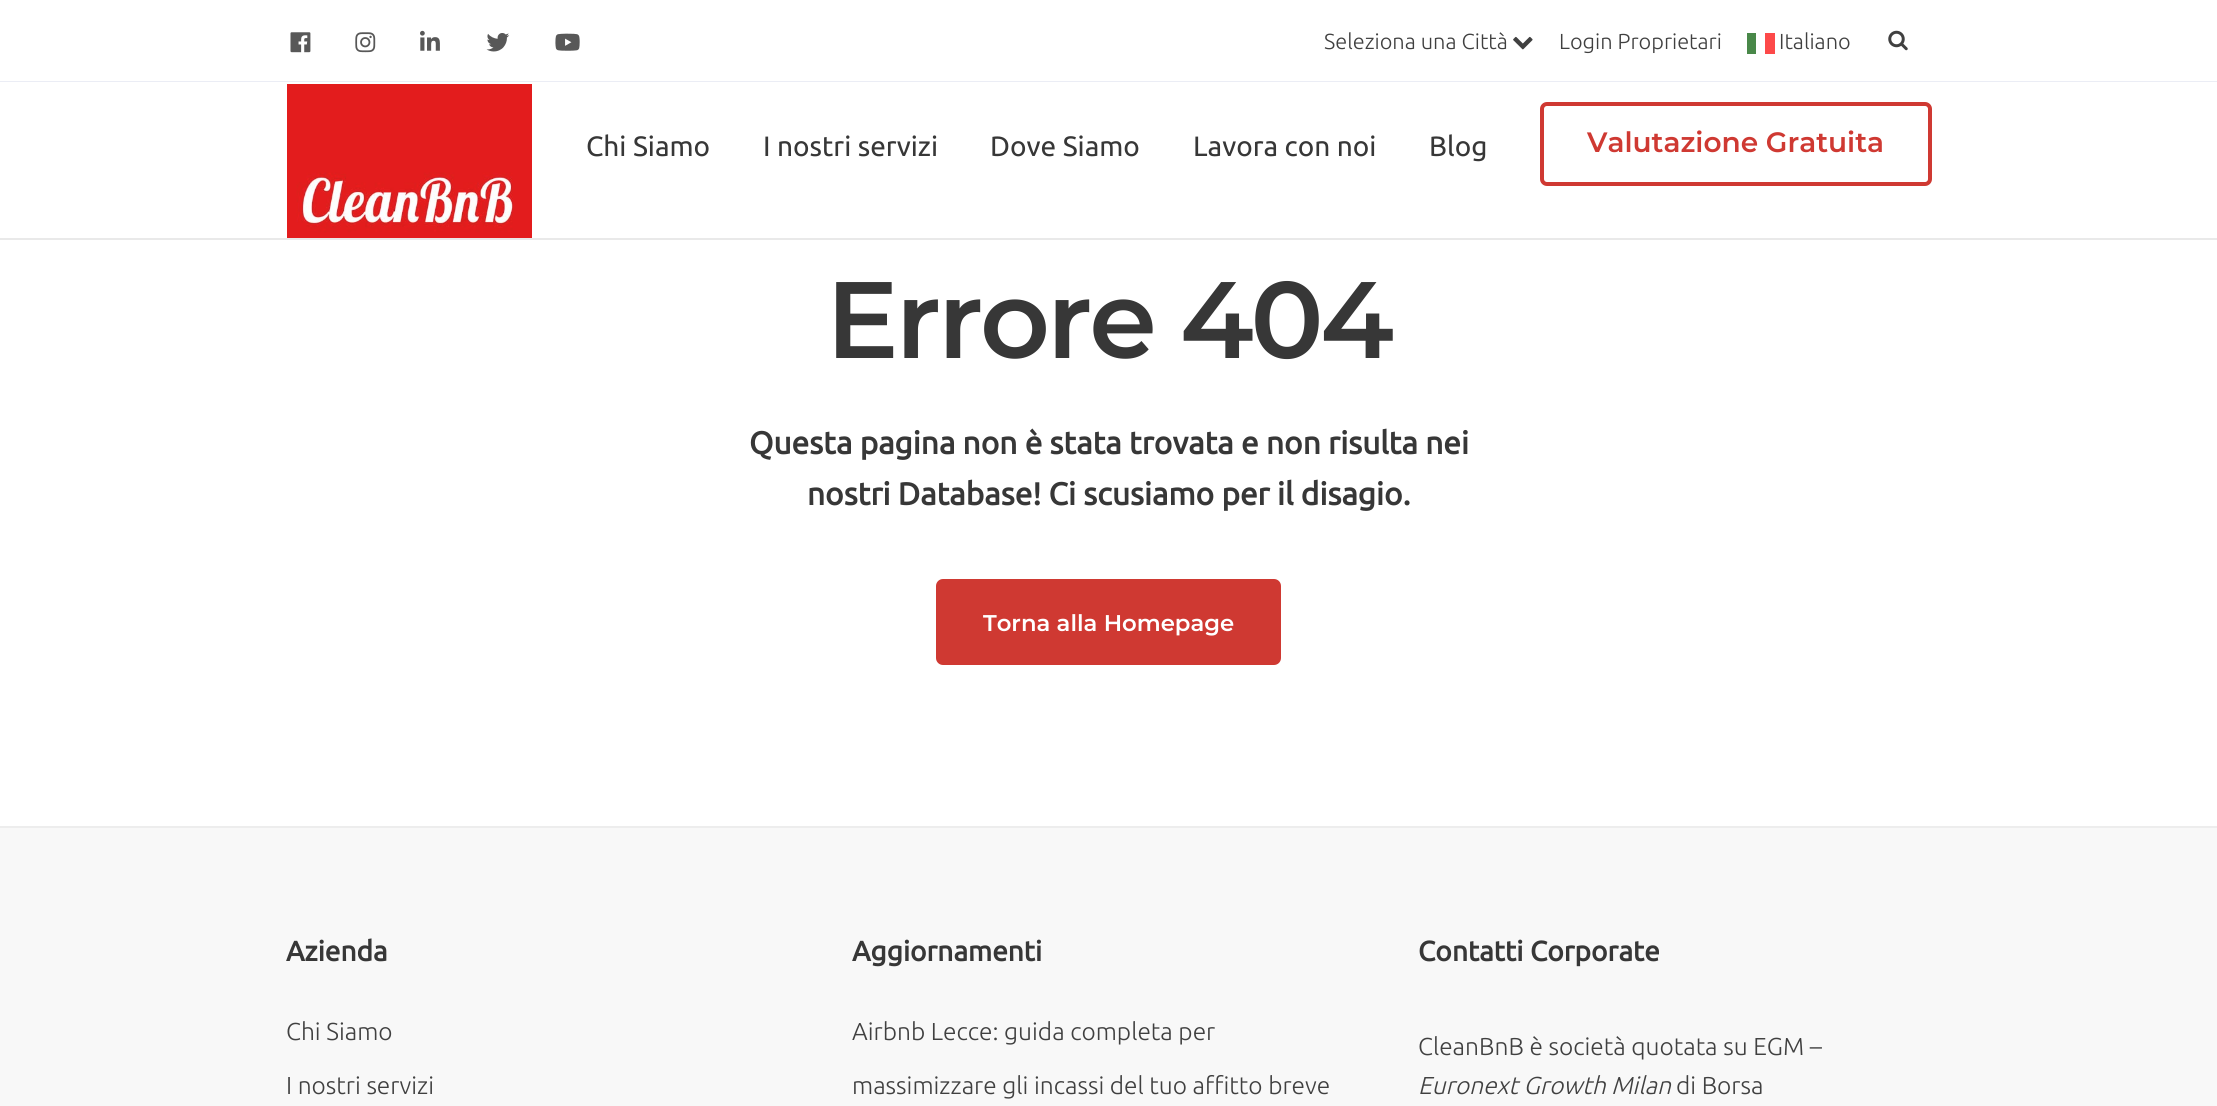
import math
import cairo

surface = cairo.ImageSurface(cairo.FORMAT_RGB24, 2217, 1106)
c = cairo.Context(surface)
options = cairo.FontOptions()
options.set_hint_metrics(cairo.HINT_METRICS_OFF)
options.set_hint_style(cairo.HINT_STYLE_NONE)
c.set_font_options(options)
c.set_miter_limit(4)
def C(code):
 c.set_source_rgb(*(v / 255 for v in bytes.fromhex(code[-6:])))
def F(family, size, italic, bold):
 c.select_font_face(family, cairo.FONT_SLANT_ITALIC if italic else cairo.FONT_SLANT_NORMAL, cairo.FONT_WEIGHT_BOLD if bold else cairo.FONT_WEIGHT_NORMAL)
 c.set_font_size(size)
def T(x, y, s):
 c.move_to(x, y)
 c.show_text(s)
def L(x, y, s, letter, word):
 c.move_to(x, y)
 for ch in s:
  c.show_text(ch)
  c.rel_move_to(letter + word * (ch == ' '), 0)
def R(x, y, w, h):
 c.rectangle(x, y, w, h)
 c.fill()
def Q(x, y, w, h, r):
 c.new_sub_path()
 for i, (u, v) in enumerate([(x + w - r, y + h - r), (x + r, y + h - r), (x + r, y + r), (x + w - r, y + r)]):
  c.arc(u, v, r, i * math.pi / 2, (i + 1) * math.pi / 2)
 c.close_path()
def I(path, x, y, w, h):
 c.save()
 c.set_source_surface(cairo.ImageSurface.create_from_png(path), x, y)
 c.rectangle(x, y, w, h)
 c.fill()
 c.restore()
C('ffffff')
c.paint()
C('e9e9e9')
R(0,238,2217,2)
C('ebedf5')
R(0,81,2217,1)
I('1.png',290,32,21,21)
I('2.png',355,32,21,21)
I('3.png',420,30,20,21)
I('4.png',486,33,24,19)
I('5.png',555,33,25,18)
F('Ubuntu Light',21.75,0,0)
C('404040')
T(1324,49,'Seleziona una Città')
I('6.png',1513,36,20,14)
T(1559,49,'Login Proprietari')
T(1779,49,'Italiano')
C('498849')
R(1747,33,9,21)
C('fd4949')
R(1765,33,10,21)
I('7.png',1888,30,20,21)
I('8.png',287,84,245,154)
F('Ubuntu',28,0,0)
C('373737')
T(586,156,'Chi Siamo')
T(763,156,'I nostri servizi')
T(990,156,'Dove Siamo')
T(1193,156,'Lavora con noi')
T(1429,156,'Blog')
Q(1542,104,388,80,5)
C('cf3932')
c.set_line_width(4)
c.stroke()
F('Montserrat SemiBold',28,0,0)
T(1587,152,'Valutazione Gratuita')
F('Montserrat SemiBold',108.5,0,0)
C('373737')
L(826,358,'Errore 404',-3.25,0)
F('Ubuntu',31.5,0,1)
T(749,454,'Questa pagina non è stata trovata e non risulta nei')
T(807,505,'nostri Database! Ci scusiamo per il disagio.')
C('cf3932')
Q(938,581,341,82,5)
c.fill_preserve()
c.stroke()
F('Montserrat SemiBold',22.75,0,0)
C('ffffff')
T(983,631,'Torna alla Homepage')
C('f8f8f8')
R(0,828,2217,278)
C('ededed')
R(0,826,2217,2)
F('Ubuntu',28,0,1)
C('373737')
T(286,961,'Azienda')
F('Ubuntu Light',24.5,0,0)
C('404040')
T(286,1040,'Chi Siamo')
T(286,1094,'I nostri servizi')
F('Ubuntu',28,0,1)
C('373737')
T(852,961,'Aggiornamenti')
F('Ubuntu Light',24.5,0,0)
C('404040')
T(852,1040,'Airbnb Lecce: guida completa per')
T(852,1094,'massimizzare gli incassi del tuo affitto breve')
F('Ubuntu',28,0,1)
C('373737')
T(1418,961,'Contatti Corporate')
F('Ubuntu Light',24.5,0,0)
C('404040')
T(1418,1055,'CleanBnB è società quotata su EGM –')
F('Ubuntu Light',24.5,1,0)
T(1418,1094,'Euronext Growth Milan')
F('Ubuntu Light',24.5,0,0)
T(1676,1094,'di Borsa')
surface.write_to_png('o.png')
